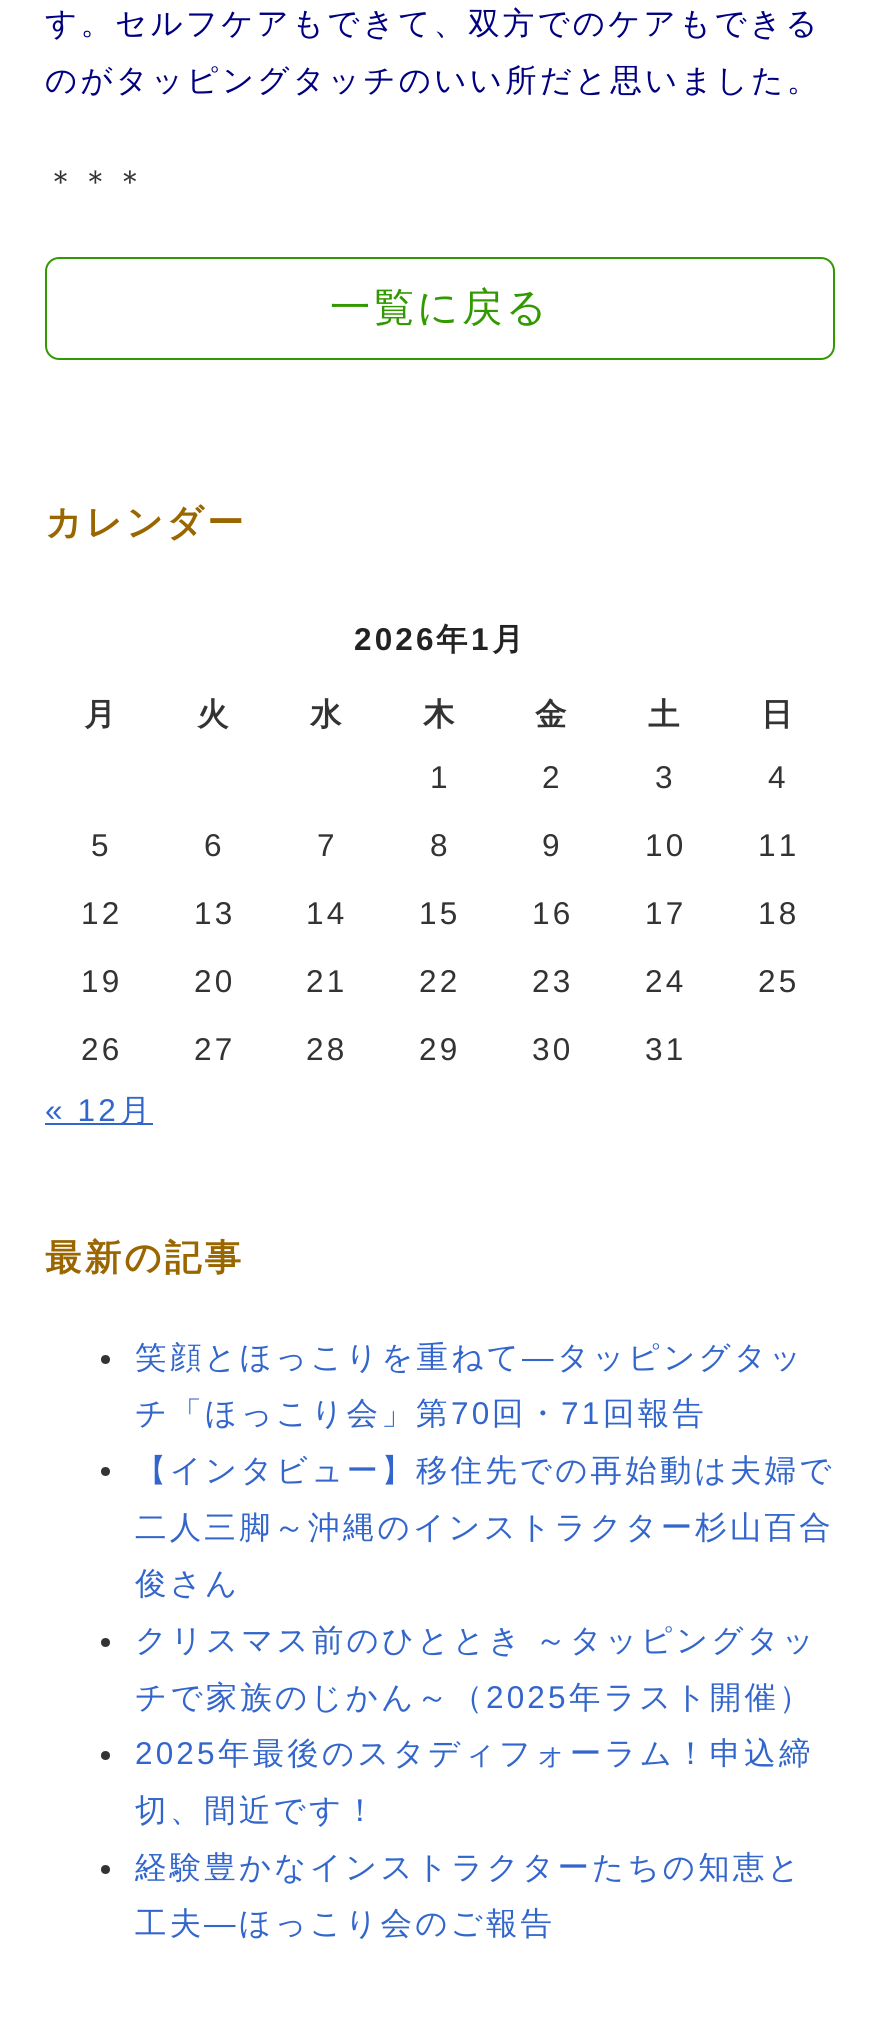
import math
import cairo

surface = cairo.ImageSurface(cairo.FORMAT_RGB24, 878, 2020)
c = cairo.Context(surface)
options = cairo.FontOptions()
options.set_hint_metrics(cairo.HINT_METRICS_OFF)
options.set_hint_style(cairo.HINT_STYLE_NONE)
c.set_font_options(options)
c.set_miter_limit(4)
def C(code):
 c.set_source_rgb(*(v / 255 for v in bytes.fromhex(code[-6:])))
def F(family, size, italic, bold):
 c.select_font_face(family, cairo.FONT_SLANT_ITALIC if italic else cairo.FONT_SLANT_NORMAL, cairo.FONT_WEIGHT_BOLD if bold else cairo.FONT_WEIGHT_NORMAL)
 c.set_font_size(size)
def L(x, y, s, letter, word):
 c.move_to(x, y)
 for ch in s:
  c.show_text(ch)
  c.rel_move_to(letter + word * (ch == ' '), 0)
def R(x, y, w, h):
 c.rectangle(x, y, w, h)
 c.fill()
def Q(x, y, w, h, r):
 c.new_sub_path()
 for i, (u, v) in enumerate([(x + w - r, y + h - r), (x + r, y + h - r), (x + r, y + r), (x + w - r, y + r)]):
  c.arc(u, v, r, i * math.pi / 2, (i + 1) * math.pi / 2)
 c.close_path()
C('ffffff')
c.paint()
F('WenQuanYi Zen Hei Medium',31.5,0,0)
C('000080')
L(45,34,'す。セルフケアもできて、双方でのケアもできる',3.15,0)
L(45,91,'のがタッピングタッチのいい所だと思いました。',3.15,0)
C('333333')
L(45,192,'＊＊＊',3.15,0)
Q(46,258,788,101,13)
C('339900')
c.stroke()
F('WenQuanYi Zen Hei Medium',40.5,0,0)
L(330,321,'一覧に戻る',3.15,0)
F('WenQuanYi Zen Hei',36.5,0,1)
C('996600')
L(45,535,'カレンダー',3.15,0)
F('Liberation Sans',31.5,0,1)
C('222222')
L(354,650,'2026',3.15,0)
F('WenQuanYi Zen Hei',31.5,0,1)
L(436,650,'年',3.15,0)
F('Liberation Sans',31.5,0,1)
L(471,650,'1',3.15,0)
F('WenQuanYi Zen Hei',31.5,0,1)
L(492,650,'月',3.15,0)
C('333333')
L(84,725,'月',3.15,0)
L(197,725,'火',3.15,0)
L(310,725,'水',3.15,0)
L(423,725,'木',3.15,0)
L(535,725,'金',3.15,0)
L(648,725,'土',3.15,0)
L(761,725,'日',3.15,0)
F('Liberation Sans',31.5,0,0)
L(430,788,'1',3.15,0)
L(542,788,'2',3.15,0)
L(655,788,'3',3.15,0)
L(768,788,'4',3.15,0)
L(91,856,'5',3.15,0)
L(204,856,'6',3.15,0)
L(317,856,'7',3.15,0)
L(430,856,'8',3.15,0)
L(542,856,'9',3.15,0)
L(645,856,'10',3.15,0)
L(758,856,'11',3.15,0)
L(81,924,'12',3.15,0)
L(194,924,'13',3.15,0)
L(306,924,'14',3.15,0)
L(419,924,'15',3.15,0)
L(532,924,'16',3.15,0)
L(645,924,'17',3.15,0)
L(758,924,'18',3.15,0)
L(81,992,'19',3.15,0)
L(194,992,'20',3.15,0)
L(306,992,'21',3.15,0)
L(419,992,'22',3.15,0)
L(532,992,'23',3.15,0)
L(645,992,'24',3.15,0)
L(758,992,'25',3.15,0)
L(81,1060,'26',3.15,0)
L(194,1060,'27',3.15,0)
L(306,1060,'28',3.15,0)
L(419,1060,'29',3.15,0)
L(532,1060,'30',3.15,0)
L(645,1060,'31',3.15,0)
C('3366cc')
L(45,1121,'« 12',3.15,0)
R(45,1123,108,2)
F('WenQuanYi Zen Hei Medium',31.5,0,0)
L(119,1121,'月',3.15,0)
F('WenQuanYi Zen Hei',36.5,0,1)
C('996600')
L(45,1270,'最新の記事',3.15,0)
C('333333')
c.new_path()
c.arc(105.5,1359.5,4.5,0,2 * math.pi)
c.fill()
F('WenQuanYi Zen Hei Medium',31.5,0,0)
C('3366cc')
L(135,1368,'笑顔とほっこりを重ねて',3.15,0)
F('Liberation Sans',31.5,0,0)
L(522,1368,'―',3.15,0)
F('WenQuanYi Zen Hei Medium',31.5,0,0)
L(557,1368,'タッピングタッ',3.15,0)
L(135,1424,'チ「ほっこり会」第',3.15,0)
F('Liberation Sans',31.5,0,0)
L(451,1424,'70',3.15,0)
F('WenQuanYi Zen Hei Medium',31.5,0,0)
L(492,1424,'回・',3.15,0)
F('Liberation Sans',31.5,0,0)
L(561,1424,'71',3.15,0)
F('WenQuanYi Zen Hei Medium',31.5,0,0)
L(603,1424,'回報告',3.15,0)
C('333333')
c.new_path()
c.arc(105.5,1471.5,4.5,0,2 * math.pi)
c.fill()
C('3366cc')
L(135,1481,'【インタビュー】移住先での再始動は夫婦で',3.15,0)
L(135,1538,'二人三脚～沖縄のインストラクター杉山百合',3.15,0)
L(135,1594,'俊さん',3.15,0)
C('333333')
c.new_path()
c.arc(105.5,1642.5,4.5,0,2 * math.pi)
c.fill()
C('3366cc')
L(135,1651,'クリスマス前のひととき ～タッピングタッ',3.15,-1)
L(135,1708,'チで家族のじかん～（',3.15,0)
F('Liberation Sans',31.5,0,0)
L(486,1708,'2025',3.15,0)
F('WenQuanYi Zen Hei Medium',31.5,0,0)
L(569,1708,'年ラスト開催）',3.15,0)
C('333333')
c.new_path()
c.arc(105.5,1755.5,4.5,0,2 * math.pi)
c.fill()
F('Liberation Sans',31.5,0,0)
C('3366cc')
L(135,1764,'2025',3.15,0)
F('WenQuanYi Zen Hei Medium',31.5,0,0)
L(218,1764,'年最後のスタディフォーラム！申込締',3.15,0)
L(135,1821,'切、間近です！',3.15,0)
C('333333')
c.new_path()
c.arc(105.5,1869.5,4.5,0,2 * math.pi)
c.fill()
C('3366cc')
L(135,1878,'経験豊かなインストラクターたちの知恵と',3.15,0)
L(135,1934,'工夫',3.15,0)
F('Liberation Sans',31.5,0,0)
L(204,1934,'―',3.15,0)
F('WenQuanYi Zen Hei Medium',31.5,0,0)
L(239,1934,'ほっこり会のご報告',3.15,0)
surface.write_to_png('o.png')
